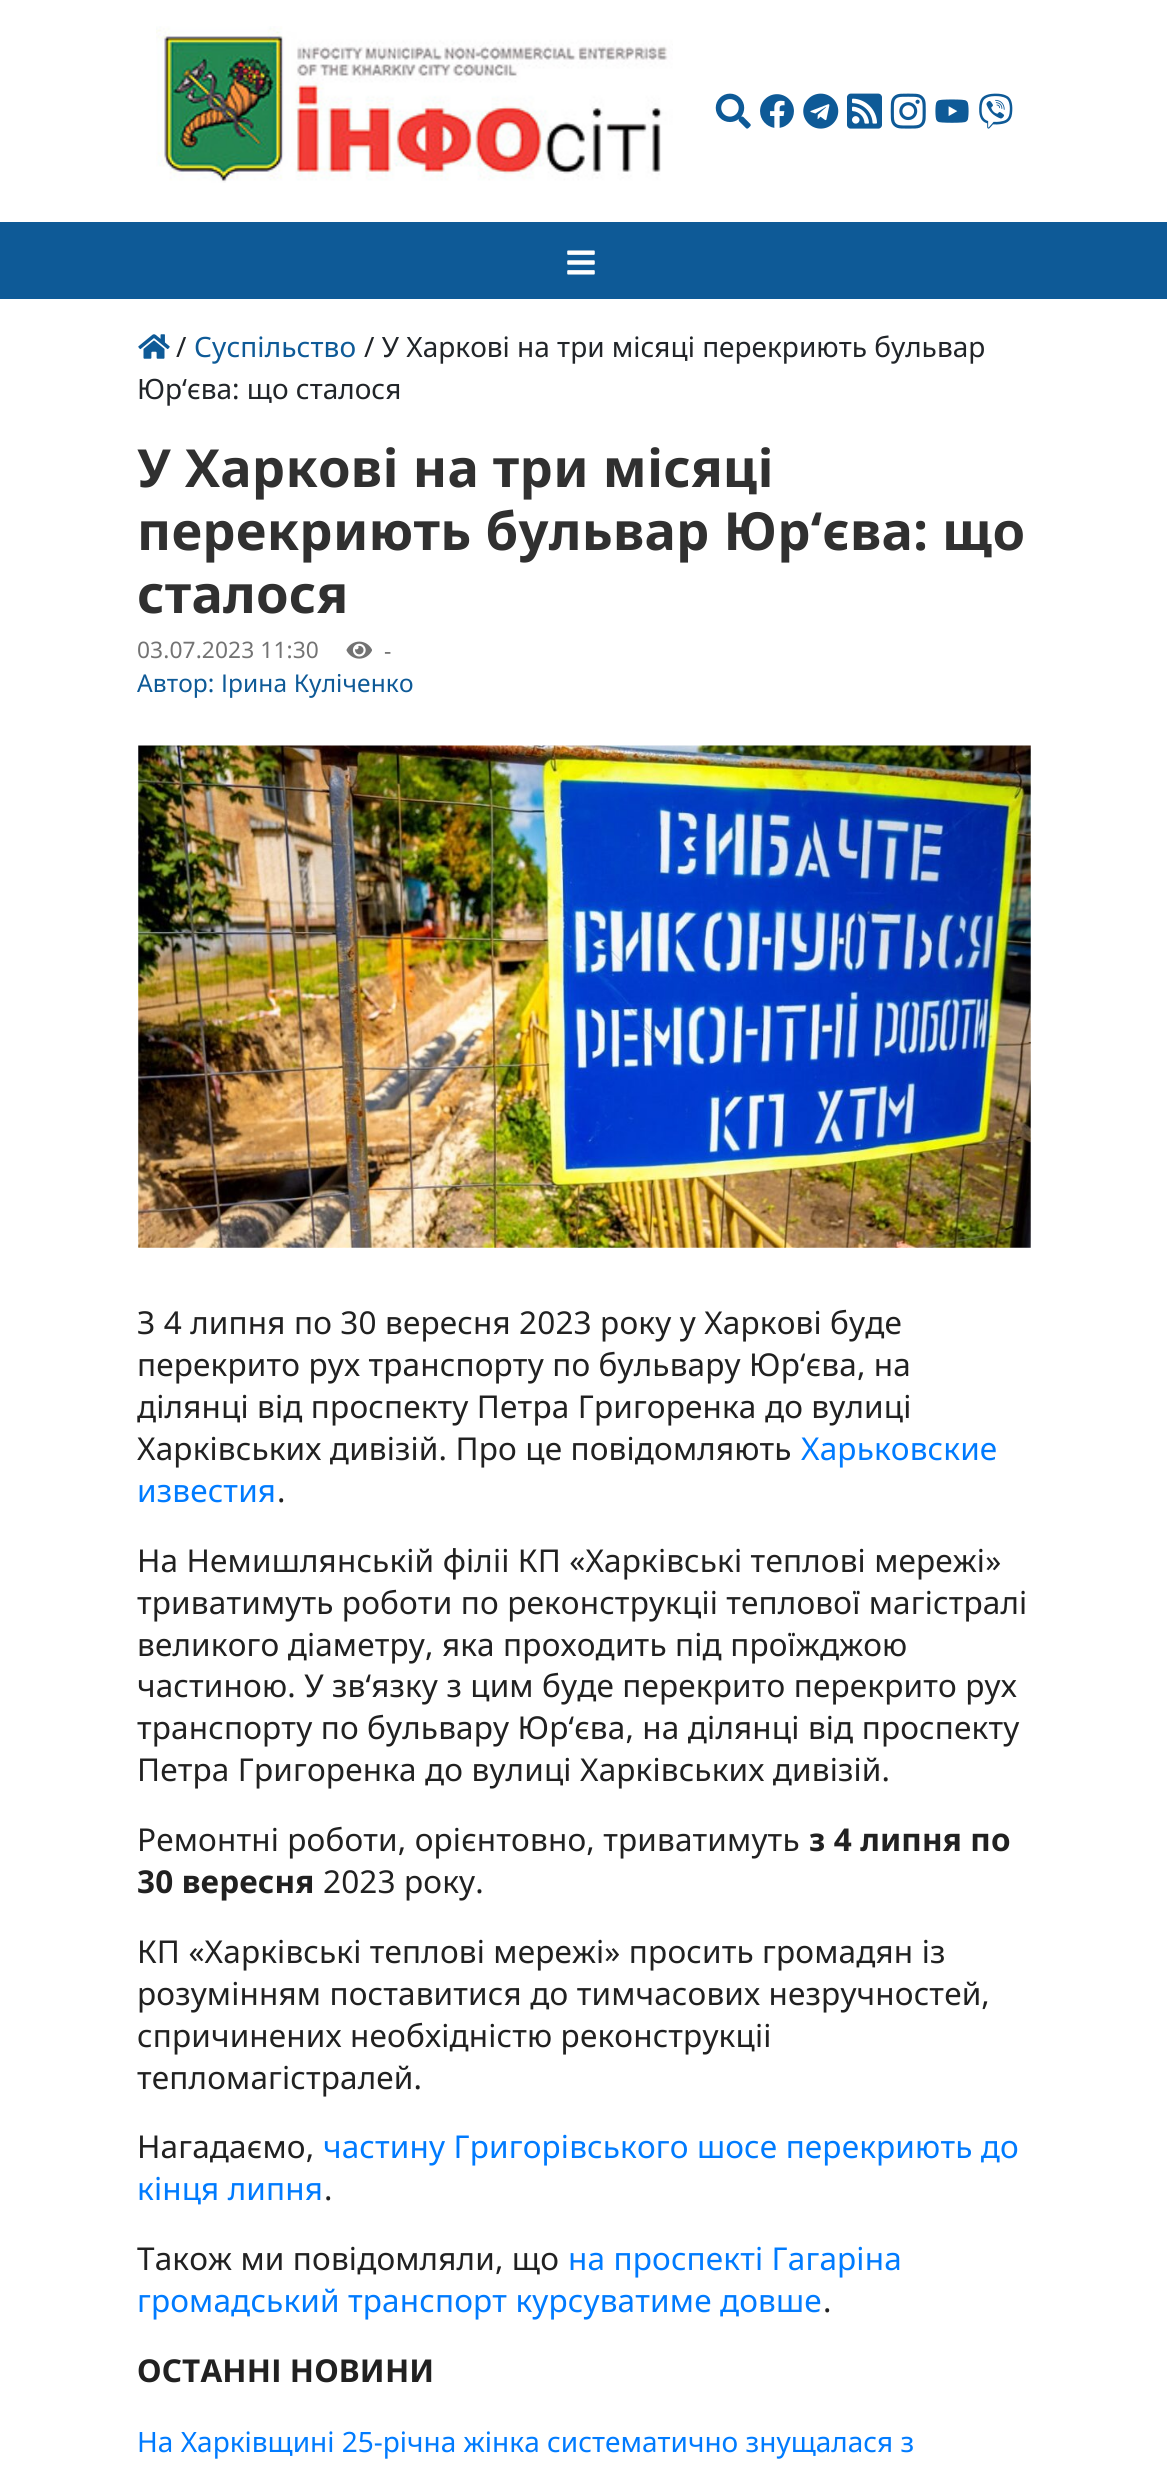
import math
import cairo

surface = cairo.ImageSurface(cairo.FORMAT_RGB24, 1167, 2485)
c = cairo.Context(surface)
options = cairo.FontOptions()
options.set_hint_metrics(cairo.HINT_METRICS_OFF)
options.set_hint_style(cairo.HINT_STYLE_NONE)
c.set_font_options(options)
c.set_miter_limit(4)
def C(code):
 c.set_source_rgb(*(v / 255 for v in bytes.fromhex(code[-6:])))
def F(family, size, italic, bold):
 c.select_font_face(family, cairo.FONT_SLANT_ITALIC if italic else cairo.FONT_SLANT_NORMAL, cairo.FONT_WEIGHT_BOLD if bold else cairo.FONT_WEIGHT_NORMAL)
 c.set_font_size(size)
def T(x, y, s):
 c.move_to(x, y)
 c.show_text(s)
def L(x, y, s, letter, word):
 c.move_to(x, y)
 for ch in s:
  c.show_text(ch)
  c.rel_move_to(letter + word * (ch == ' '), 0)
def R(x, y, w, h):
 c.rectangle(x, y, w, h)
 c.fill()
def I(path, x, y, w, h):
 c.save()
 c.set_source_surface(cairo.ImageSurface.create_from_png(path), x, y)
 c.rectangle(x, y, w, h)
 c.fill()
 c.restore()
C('ffffff')
c.paint()
I('1.png',156,26,517,157)
I('2.png',715,93,36,36)
I('3.png',760,94,34,34)
I('4.png',803,93,36,36)
I('5.png',847,93,35,36)
I('6.png',890,93,36,36)
I('7.png',935,99,34,24)
I('8.png',979,93,34,36)
C('0e5a97')
R(0,222,1167,77)
I('9.png',567,250,28,25)
I('10.png',138,334,32,25)
F('Noto Sans',28,0,0)
C('212529')
T(176,357,'/')
C('0e5a97')
L(194,357,'Суспільство',.1,0)
C('212529')
T(364,357,'/ У Харкові на три місяці перекриють бульвар')
T(137,399,'Юр‘єва: що сталося')
F('Noto Sans',52.5,0,1)
C('303030')
L(137,487,'У Харкові на три місяці',.25,0)
L(137,550,'перекриють бульвар Юр‘єва: що',.25,0)
L(137,613,'сталося',.25,0)
F('Noto Sans',22.75,0,0)
C('737373')
L(137,658,'03.07.2023 11:30',.1,0)
I('11.png',346,641,26,18)
L(384,659,'-',.1,0)
F('Noto Sans',24.5,0,0)
C('0e5a97')
L(137,692,'Автор: Ірина Куліченко',.1,0)
I('12.png',138,745,893,503)
F('Noto Sans',31.5,0,0)
C('212121')
L(137,1334,'З 4 липня по 30 вересня 2023 року у Харкові буде',.15,0)
L(137,1376,'перекрито рух транспорту по бульвару Юр‘єва, на',.15,0)
L(137,1418,'ділянці від проспекту Петра Григоренка до вулиці',.15,0)
L(137,1460,'Харківських дивізій. Про це повідомляють',.15,0)
C('007bff')
L(801,1460,'Харьковские',.15,0)
L(137,1502,'известия',.15,0)
C('212121')
L(277,1502,'.',.15,0)
L(137,1572,'На Немишлянській філіі КП «Харківські теплові мережі»',.15,0)
L(137,1614,'триватимуть роботи по реконструкціі теплової магістралі',.15,0)
L(137,1656,'великого діаметру, яка проходить під проїжджою',.15,0)
L(137,1697,'частиною. У зв‘язку з цим буде перекрито перекрито рух',.15,0)
L(137,1739,'транспорту по бульвару Юр‘єва, на ділянці від проспекту',.15,0)
L(137,1781,'Петра Григоренка до вулиці Харківських дивізій.',.15,0)
L(137,1851,'Ремонтні роботи, орієнтовно, триватимуть',.15,0)
F('Noto Sans',31.5,0,1)
L(809,1851,'з 4 липня по',.15,0)
L(137,1893,'30 вересня',.15,0)
F('Noto Sans',31.5,0,0)
L(323,1893,'2023 року.',.15,0)
L(137,1963,'КП «Харківські теплові мережі» просить громадян із',.15,0)
L(137,2005,'розумінням поставитися до тимчасових незручностей,',.15,0)
L(137,2047,'спричинених необхідністю реконструкціі',.15,0)
L(137,2089,'тепломагістралей.',.15,0)
L(137,2158,'Нагадаємо,',.15,0)
C('007bff')
L(323,2158,'частину Григорівського шосе перекриють до',.15,0)
L(137,2200,'кінця липня',.15,0)
C('212121')
L(324,2200,'.',.15,0)
L(137,2270,'Також ми повідомляли, що',.15,0)
C('007bff')
L(568,2270,'на проспекті Гагаріна',.15,0)
L(137,2312,'громадський транспорт курсуватиме довше',.15,0)
C('212121')
L(823,2312,'.',.15,0)
F('Noto Sans',31.5,0,1)
L(137,2382,'ОСТАННІ НОВИНИ',.15,0)
F('Noto Sans',28,0,0)
C('007bff')
T(137,2452,'На Харківщині 25-річна жінка систематично знущалася з')
surface.write_to_png('o.png')
